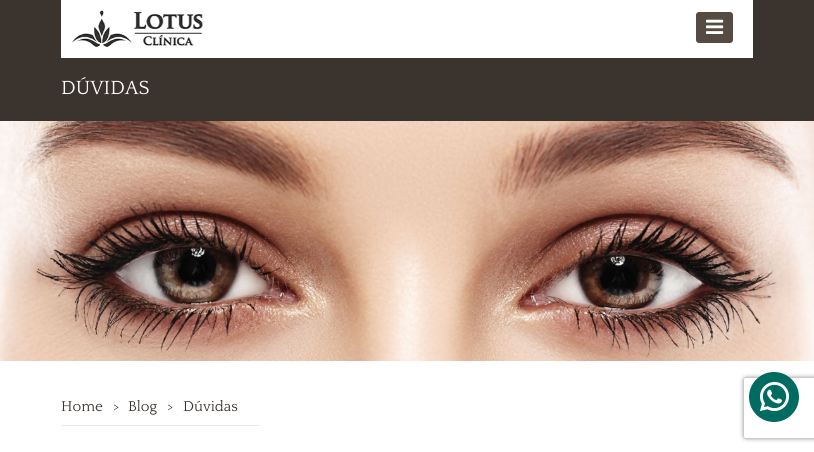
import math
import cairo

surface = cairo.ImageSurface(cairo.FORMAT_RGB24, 814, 452)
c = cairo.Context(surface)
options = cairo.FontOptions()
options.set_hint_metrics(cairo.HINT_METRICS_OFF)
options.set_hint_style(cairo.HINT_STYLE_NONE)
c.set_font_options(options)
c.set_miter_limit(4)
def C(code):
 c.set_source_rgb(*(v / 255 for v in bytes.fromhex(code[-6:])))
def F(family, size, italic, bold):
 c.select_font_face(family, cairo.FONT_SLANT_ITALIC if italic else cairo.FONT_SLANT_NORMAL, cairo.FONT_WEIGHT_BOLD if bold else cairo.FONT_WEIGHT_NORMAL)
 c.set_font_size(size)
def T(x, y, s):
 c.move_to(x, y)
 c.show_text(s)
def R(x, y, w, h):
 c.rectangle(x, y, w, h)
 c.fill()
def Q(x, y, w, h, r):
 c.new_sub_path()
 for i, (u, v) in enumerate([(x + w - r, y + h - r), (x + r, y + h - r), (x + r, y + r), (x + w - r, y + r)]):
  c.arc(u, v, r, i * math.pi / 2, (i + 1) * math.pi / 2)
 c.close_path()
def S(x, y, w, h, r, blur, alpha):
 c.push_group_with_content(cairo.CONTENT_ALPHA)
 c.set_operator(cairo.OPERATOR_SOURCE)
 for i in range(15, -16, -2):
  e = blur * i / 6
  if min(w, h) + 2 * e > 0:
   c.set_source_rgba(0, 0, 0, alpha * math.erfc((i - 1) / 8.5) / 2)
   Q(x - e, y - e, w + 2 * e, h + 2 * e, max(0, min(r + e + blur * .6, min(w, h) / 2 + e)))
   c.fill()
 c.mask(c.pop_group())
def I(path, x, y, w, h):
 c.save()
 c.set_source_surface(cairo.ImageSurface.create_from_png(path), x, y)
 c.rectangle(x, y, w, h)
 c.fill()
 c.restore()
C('ffffff')
c.paint()
C('3b332e')
R(0,0,814,121)
C('ffffff')
R(61,0,692,58)
I('1.png',72,10,131,38)
C('554b42')
Q(696,12,37,31,3)
c.fill()
I('2.png',706,19,18,15)
F('Quattrocento',20,0,0)
C('ffffff')
T(61,94,'DÚVIDAS')
I('3.png',0,121,814,240)
C('ebeaea')
R(61,425,199,1)
F('Quattrocento',15,0,0)
C('3b332e')
T(61,411,'Home')
T(113,411,'>')
T(128,411,'Blog')
T(167,411,'>')
T(183,411,'Dúvidas')
c.save()
c.set_fill_rule(cairo.FILL_RULE_EVEN_ODD)
c.new_path()
c.move_to(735,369)
c.line_to(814,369)
c.line_to(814,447)
c.line_to(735,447)
c.close_path()
c.move_to(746,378)
c.line_to(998,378)
c.curve_to(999,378,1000,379,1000,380)
c.line_to(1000,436)
c.curve_to(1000,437,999,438,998,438)
c.line_to(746,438)
c.curve_to(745,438,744,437,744,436)
c.line_to(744,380)
c.curve_to(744,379,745,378,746,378)
c.close_path()
c.clip()
C('808080')
S(744,378,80,60,2,2.5,1)
c.restore()
C('006c61')
c.arc(774,397,25,0,2 * math.pi)
c.fill()
I('4.png',759,381,31,31)
surface.write_to_png('o.png')
